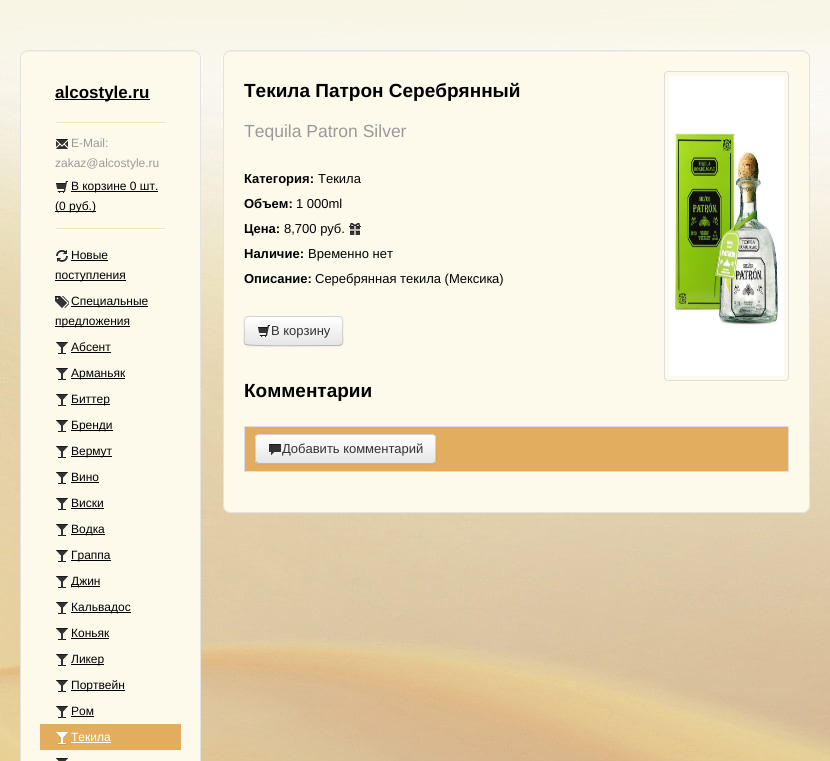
import math
import cairo

surface = cairo.ImageSurface(cairo.FORMAT_RGB24, 830, 761)
c = cairo.Context(surface)
options = cairo.FontOptions()
options.set_hint_metrics(cairo.HINT_METRICS_OFF)
options.set_hint_style(cairo.HINT_STYLE_NONE)
c.set_font_options(options)
c.set_miter_limit(4)
def C(code):
 c.set_source_rgb(*(v / 255 for v in bytes.fromhex(code[-6:])))
def F(family, size, italic, bold):
 c.select_font_face(family, cairo.FONT_SLANT_ITALIC if italic else cairo.FONT_SLANT_NORMAL, cairo.FONT_WEIGHT_BOLD if bold else cairo.FONT_WEIGHT_NORMAL)
 c.set_font_size(size)
def T(x, y, s):
 c.move_to(x, y)
 c.show_text(s)
def R(x, y, w, h):
 c.rectangle(x, y, w, h)
 c.fill()
def Q(x, y, w, h, r):
 c.new_sub_path()
 for i, (u, v) in enumerate([(x + w - r, y + h - r), (x + r, y + h - r), (x + r, y + r), (x + w - r, y + r)]):
  c.arc(u, v, r, i * math.pi / 2, (i + 1) * math.pi / 2)
 c.close_path()
def S(x, y, w, h, r, blur, alpha):
 c.push_group_with_content(cairo.CONTENT_ALPHA)
 c.set_operator(cairo.OPERATOR_SOURCE)
 for i in range(15, -16, -2):
  e = blur * i / 6
  if min(w, h) + 2 * e > 0:
   c.set_source_rgba(0, 0, 0, alpha * math.erfc((i - 1) / 8.5) / 2)
   Q(x - e, y - e, w + 2 * e, h + 2 * e, max(0, min(r + e + blur * .6, min(w, h) / 2 + e)))
   c.fill()
 c.mask(c.pop_group())
def I(path, x, y, w, h):
 c.save()
 c.set_source_surface(cairo.ImageSurface.create_from_png(path), x, y)
 c.rectangle(x, y, w, h)
 c.fill()
 c.restore()
C('ffffff')
c.paint()
I('1.png',0,0,830,761)
C('fdfaec')
Q(20,50,181,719,8)
c.fill()
C('f0eee0')
c.new_path()
c.move_to(28,52)
c.line_to(193,52)
c.curve_to(197,52,200,55,200,59)
c.line_to(200,58)
c.curve_to(200,54,197,51,193,51)
c.line_to(28,51)
c.curve_to(24,51,21,54,21,58)
c.line_to(21,59)
c.curve_to(21,55,24,52,28,52)
c.close_path()
c.fill()
Q(20.5,50.5,180,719,7.5)
C('e3e3e3')
c.set_line_width(1)
c.stroke()
C('000000')
R(55,99,95,1)
F('Liberation Sans',17,0,1)
T(55,98,'alcostyle.ru')
C('f4e2be')
R(56,122,109,1)
C('ffffff')
R(56,123,109,1)
I('2.png',56,139,12,11)
F('Liberation Sans',12,0,0)
C('999999')
T(71,147,'E-Mail:')
T(55,167,'zakaz@alcostyle.ru')
I('3.png',56,181,12,13)
C('000000')
R(71,191,87,1)
T(71,190,'В корзине 0 шт.')
R(55,211,41,1)
T(55,210,'(0 руб.)')
C('f4e2be')
R(56,228,109,1)
C('ffffff')
R(56,229,109,1)
I('4.png',56,250,12,13)
C('000000')
T(71,259,'Новые')
R(71,260,37,1)
R(55,280,71,1)
T(55,279,'поступления')
I('5.png',55,296,14,12)
R(71,306,77,1)
T(71,305,'Специальные')
R(55,326,75,1)
T(55,325,'предложения')
I('6.png',56,342,12,13)
T(71,351,'Абсент')
R(71,352,40,1)
I('6.png',56,368,12,13)
R(71,378,54,1)
T(71,377,'Арманьяк')
I('6.png',56,394,12,13)
R(71,404,39,1)
T(71,403,'Биттер')
I('6.png',56,420,12,13)
R(71,430,42,1)
T(71,429,'Бренди')
I('6.png',56,446,12,13)
R(71,456,41,1)
T(71,455,'Вермут')
I('6.png',56,472,12,13)
T(71,481,'Вино')
R(71,482,28,1)
I('6.png',56,498,12,13)
T(71,507,'Виски')
R(71,508,33,1)
I('6.png',56,524,12,13)
R(71,534,34,1)
T(71,533,'Водка')
I('6.png',56,550,12,13)
R(71,560,40,1)
T(71,559,'Граппа')
I('6.png',56,576,12,13)
R(71,586,29,1)
T(71,585,'Джин')
I('6.png',56,602,12,13)
R(71,612,60,1)
T(71,611,'Кальвадос')
I('6.png',56,628,12,13)
T(71,637,'Коньяк')
R(71,638,38,1)
I('6.png',56,654,12,13)
R(71,664,33,1)
T(71,663,'Ликер')
I('6.png',56,680,12,13)
R(71,690,54,1)
T(71,689,'Портвейн')
I('6.png',56,706,12,13)
T(71,715,'Ром')
R(71,716,23,1)
C('e3ad5f')
R(40,724,141,26)
I('7.png',56,732,12,13)
C('ffffff')
T(71,741,'Текила')
R(71,742,40,1)
I('8.png',56,758,12,3)
C('fdfaec')
Q(223,50,587,463,8)
c.fill()
C('f0eee0')
c.new_path()
c.move_to(231,52)
c.line_to(802,52)
c.curve_to(806,52,809,55,809,59)
c.curve_to(809,55,807,51,802,51)
c.line_to(231,51)
c.curve_to(226,51,224,55,224,59)
c.curve_to(224,55,227,52,231,52)
c.close_path()
c.fill()
Q(223.5,50.5,586,462,7.5)
C('e3e3e3')
c.stroke()
F('Liberation Sans',19,0,1)
C('000000')
T(244,97,'Текила Патрон Серебрянный')
F('Liberation Sans',17.5,0,0)
C('999999')
T(244,137,'Tequila Patron Silver')
Q(664.5,71.5,124,309,3.5)
C('dddddd')
c.stroke()
I('9.png',669,76,115,300)
F('Liberation Sans',13,0,1)
C('000000')
T(244,183,'Категория:')
F('Liberation Sans',13,0,0)
T(318,183,'Текила')
F('Liberation Sans',13,0,1)
T(244,208,'Объем:')
F('Liberation Sans',13,0,0)
T(296,208,'1 000ml')
F('Liberation Sans',13,0,1)
T(244,233,'Цена:')
F('Liberation Sans',13,0,0)
T(284,233,'8,700 руб.')
I('10.png',349,223,12,13)
F('Liberation Sans',13,0,1)
T(244,258,'Наличие:')
F('Liberation Sans',13,0,0)
T(308,258,'Временно нет')
F('Liberation Sans',13,0,1)
T(244,283,'Описание:')
F('Liberation Sans',13,0,0)
T(315,283,'Серебрянная текила (Мексика)')
C('000000')
S(244,317,99,30,4,1,.05)
C('f5f5f5')
Q(244,316,99,30,4)
c.fill()
c.save()
Q(244,316,99,30,4)
c.clip()
gradient = cairo.LinearGradient(294,317,294,345)
gradient.add_color_stop_rgba(0,1,1,1,1)
gradient.add_color_stop_rgba(1,0.902,0.902,0.902,1)
c.set_source(gradient)
R(244,317,99,28)
c.restore()
c.new_path()
c.move_to(341.5,344.5)
c.line_to(339,345.5)
c.line_to(324,345.5)
c.curve_to(315,345.5,248,346.5,246,344.5)
c.line_to(245.5,344.5)
c.set_source_rgba(0,0,0,0.25)
c.stroke()
c.new_path()
c.move_to(245.5,344.5)
c.curve_to(243,342,244.5,337.5,244.5,334.5)
c.curve_to(244.5,313.5,241,316.5,263,316.5)
c.line_to(324,316.5)
c.curve_to(346,316.5,342.5,313.5,342.5,334.5)
c.curve_to(342.5,337.5,344,342,341.5,344.5)
c.set_source_rgba(0,0,0,0.15)
c.stroke()
I('11.png',258,325,12,13)
C('333333')
T(271,335,'В корзину')
F('Liberation Sans',19,0,1)
C('000000')
T(244,397,'Комментарии')
C('dddddd')
R(244,426,545,1)
R(788,426,1,46)
R(244,471,545,1)
R(244,426,1,46)
C('e3ad5f')
R(245,427,543,44)
C('000000')
S(255,435,181,30,4,1,.05)
C('f5f5f5')
Q(255,434,181,30,4)
c.fill()
c.save()
Q(255,434,181,30,4)
c.clip()
gradient = cairo.LinearGradient(346,435,346,463)
gradient.add_color_stop_rgba(0,1,1,1,1)
gradient.add_color_stop_rgba(1,0.902,0.902,0.902,1)
c.set_source(gradient)
R(255,435,181,28)
c.restore()
c.new_path()
c.move_to(434.5,462.5)
c.line_to(432.5,463.5)
c.line_to(288,463.5)
c.line_to(259,463.5)
c.line_to(256.5,462.5)
c.set_source_rgba(0,0,0,0.25)
c.stroke()
c.new_path()
c.move_to(256.5,462.5)
c.curve_to(254.5,460.5,255.5,452,255.5,449)
c.line_to(255.5,441.5)
c.curve_to(255.5,439,255,434.5,259,434.5)
c.line_to(432,434.5)
c.curve_to(436,434.5,435.5,439,435.5,441.5)
c.line_to(435.5,449)
c.curve_to(435.5,452,436.5,460.5,434.5,462.5)
c.set_source_rgba(0,0,0,0.15)
c.stroke()
I('12.png',269,444,12,11)
F('Liberation Sans',13,0,0)
C('333333')
T(282,453,'Добавить комментарий')
surface.write_to_png('o.png')
